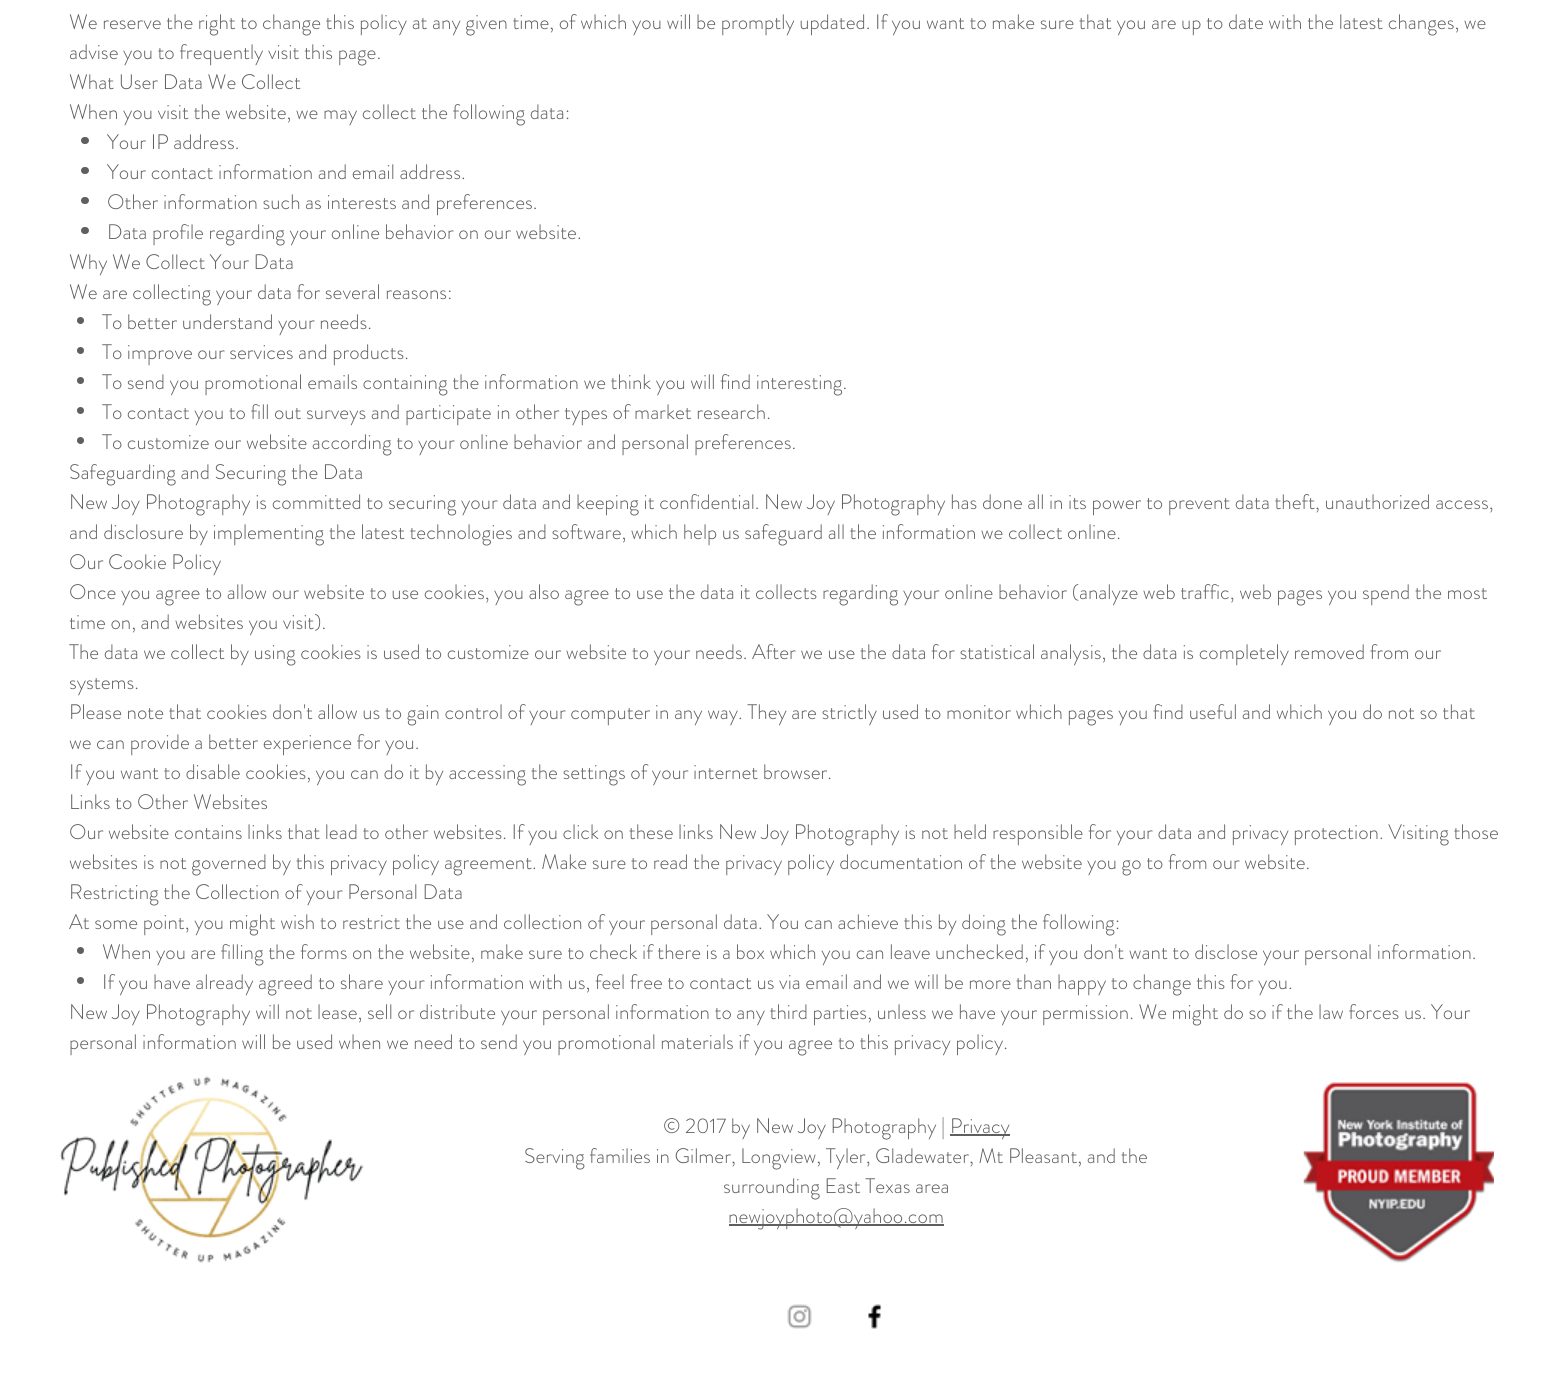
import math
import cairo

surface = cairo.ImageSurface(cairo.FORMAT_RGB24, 1553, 1374)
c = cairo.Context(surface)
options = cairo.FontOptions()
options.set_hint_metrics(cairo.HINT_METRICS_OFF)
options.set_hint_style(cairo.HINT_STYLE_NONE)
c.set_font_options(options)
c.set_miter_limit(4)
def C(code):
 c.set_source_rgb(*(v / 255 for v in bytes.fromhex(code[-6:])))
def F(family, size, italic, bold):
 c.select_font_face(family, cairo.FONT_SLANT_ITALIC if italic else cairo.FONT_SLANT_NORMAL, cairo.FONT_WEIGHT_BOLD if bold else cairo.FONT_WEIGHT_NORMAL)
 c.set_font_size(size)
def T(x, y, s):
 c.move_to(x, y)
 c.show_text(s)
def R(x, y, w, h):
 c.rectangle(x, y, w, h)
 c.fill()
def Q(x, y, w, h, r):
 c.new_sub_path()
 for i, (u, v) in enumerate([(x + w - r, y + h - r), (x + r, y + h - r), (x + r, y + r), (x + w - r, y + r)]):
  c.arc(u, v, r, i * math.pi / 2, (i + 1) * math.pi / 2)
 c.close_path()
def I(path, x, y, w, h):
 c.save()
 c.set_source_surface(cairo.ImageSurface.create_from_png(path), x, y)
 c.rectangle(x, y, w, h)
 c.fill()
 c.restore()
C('ffffff')
c.paint()
F('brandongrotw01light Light',21,0,0)
C('605e5e')
T(69,29,'We reserve the right to change this policy at any given time, of which you will be promptly updated. If you want to make sure that you are up to date with the latest changes, we')
T(69,59,'advise you to frequently visit this page.')
T(69,89,'What User Data We Collect')
T(69,119,'When you visit the website, we may collect the following data:')
Q(81,137,8,7,3.5)
c.fill()
T(107,149,'Your IP address.')
Q(81,167,8,7,3.5)
c.fill()
T(107,179,'Your contact information and email address.')
Q(81,197,8,7,3.5)
c.fill()
T(107,209,'Other information such as interests and preferences.')
Q(81,227,8,7,3.5)
c.fill()
T(107,239,'Data profile regarding your online behavior on our website.')
T(69,269,'Why We Collect Your Data')
T(69,299,'We are collecting your data for several reasons:')
c.new_path()
c.arc(80.5,320.5,3.5,0,2 * math.pi)
c.fill()
T(102,329,'To better understand your needs.')
c.new_path()
c.arc(80.5,350.5,3.5,0,2 * math.pi)
c.fill()
T(102,359,'To improve our services and products.')
c.new_path()
c.arc(80.5,380.5,3.5,0,2 * math.pi)
c.fill()
T(102,389,'To send you promotional emails containing the information we think you will find interesting.')
c.new_path()
c.arc(80.5,410.5,3.5,0,2 * math.pi)
c.fill()
T(102,419,'To contact you to fill out surveys and participate in other types of market research.')
c.new_path()
c.arc(80.5,440.5,3.5,0,2 * math.pi)
c.fill()
T(102,449,'To customize our website according to your online behavior and personal preferences.')
T(69,479,'Safeguarding and Securing the Data')
T(69,509,'New Joy Photography is committed to securing your data and keeping it confidential. New Joy Photography has done all in its power to prevent data theft, unauthorized access,')
T(69,539,'and disclosure by implementing the latest technologies and software, which help us safeguard all the information we collect online.')
T(69,569,'Our Cookie Policy')
T(69,599,'Once you agree to allow our website to use cookies, you also agree to use the data it collects regarding your online behavior (analyze web traffic, web pages you spend the most')
T(69,629,'time on, and websites you visit).')
T(69,659,'The data we collect by using cookies is used to customize our website to your needs. After we use the data for statistical analysis, the data is completely removed from our')
T(69,689,'systems.')
T(69,719,'Please note that cookies don\'t allow us to gain control of your computer in any way. They are strictly used to monitor which pages you find useful and which you do not so that')
T(69,749,'we can provide a better experience for you.')
T(69,779,'If you want to disable cookies, you can do it by accessing the settings of your internet browser.')
T(69,809,'Links to Other Websites')
T(69,839,'Our website contains links that lead to other websites. If you click on these links New Joy Photography is not held responsible for your data and privacy protection. Visiting those')
T(69,869,'websites is not governed by this privacy policy agreement. Make sure to read the privacy policy documentation of the website you go to from our website.')
T(69,899,'Restricting the Collection of your Personal Data')
T(69,929,'At some point, you might wish to restrict the use and collection of your personal data. You can achieve this by doing the following:')
c.new_path()
c.arc(80.5,950.5,3.5,0,2 * math.pi)
c.fill()
T(102,959,'When you are filling the forms on the website, make sure to check if there is a box which you can leave unchecked, if you don\'t want to disclose your personal information.')
c.new_path()
c.arc(80.5,980.5,3.5,0,2 * math.pi)
c.fill()
T(102,989,'If you have already agreed to share your information with us, feel free to contact us via email and we will be more than happy to change this for you.')
T(69,1019,'New Joy Photography will not lease, sell or distribute your personal information to any third parties, unless we have your permission. We might do so if the law forces us. Your')
T(69,1049,'personal information will be used when we need to send you promotional materials if you agree to this privacy policy.')
I('1.png',60,1076,304,187)
T(663,1133,'© 2017 by New Joy Photography |')
R(950,1134,60,2)
T(950,1133,'Privacy')
T(524,1163,'Serving families in Gilmer, Longview, Tyler, Gladewater, Mt Pleasant, and the')
T(723,1193,'surrounding East Texas area')
R(729,1224,215,2)
T(728,1223,'newjoyphoto@yahoo.com')
I('2.png',1303,1082,191,181)
I('3.png',787,1304,25,25)
I('4.png',868,1304,14,25)
surface.write_to_png('o.png')
